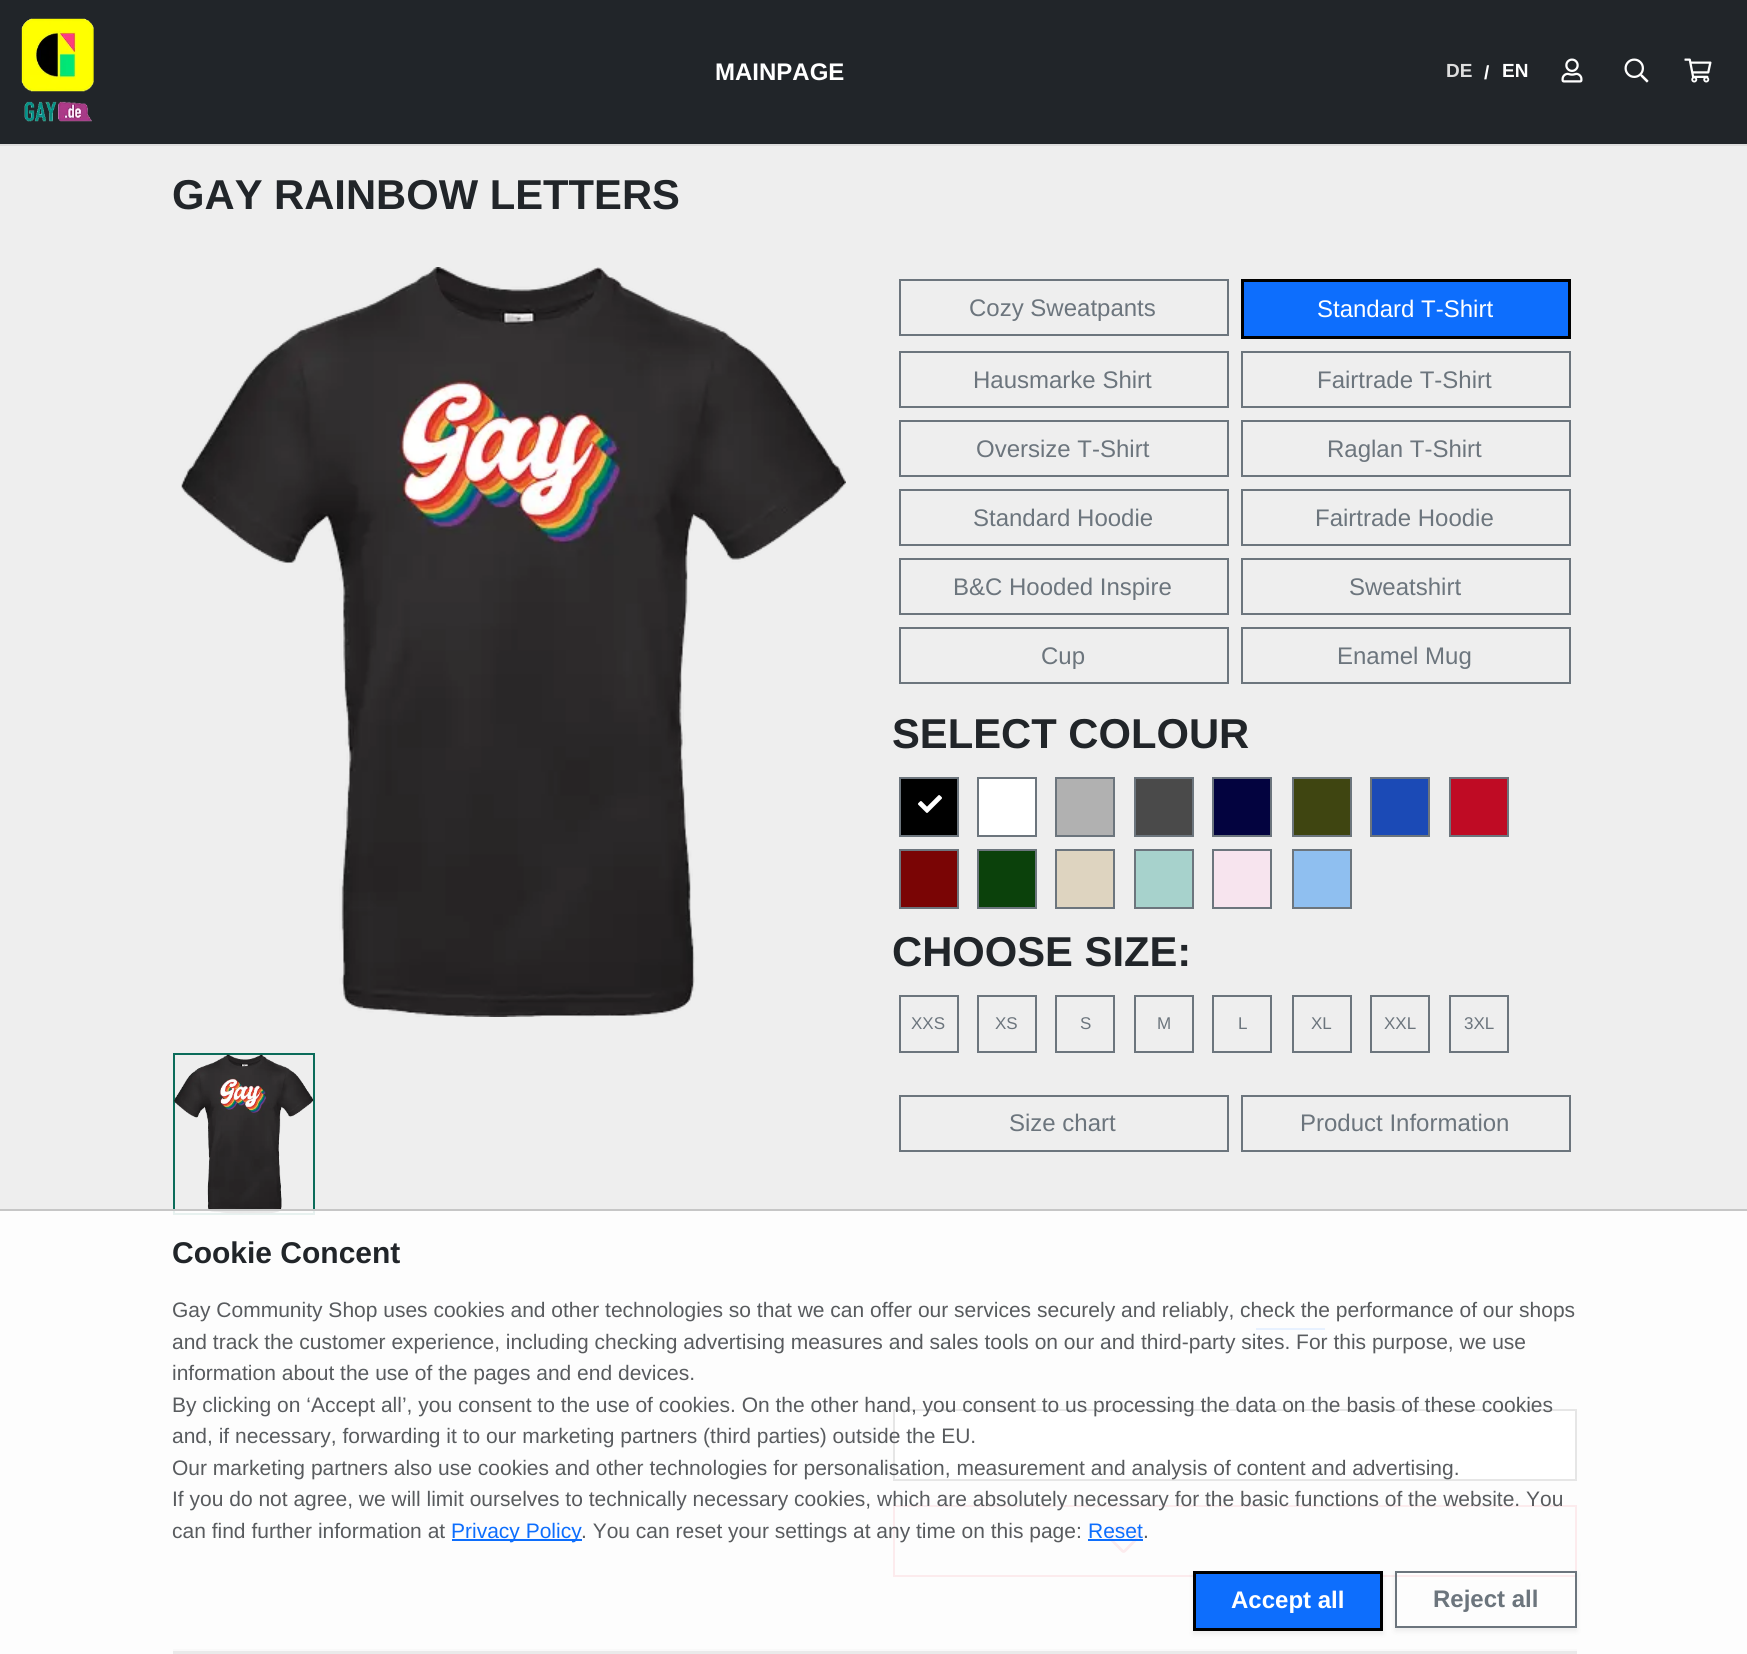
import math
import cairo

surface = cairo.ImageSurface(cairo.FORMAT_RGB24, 1747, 1654)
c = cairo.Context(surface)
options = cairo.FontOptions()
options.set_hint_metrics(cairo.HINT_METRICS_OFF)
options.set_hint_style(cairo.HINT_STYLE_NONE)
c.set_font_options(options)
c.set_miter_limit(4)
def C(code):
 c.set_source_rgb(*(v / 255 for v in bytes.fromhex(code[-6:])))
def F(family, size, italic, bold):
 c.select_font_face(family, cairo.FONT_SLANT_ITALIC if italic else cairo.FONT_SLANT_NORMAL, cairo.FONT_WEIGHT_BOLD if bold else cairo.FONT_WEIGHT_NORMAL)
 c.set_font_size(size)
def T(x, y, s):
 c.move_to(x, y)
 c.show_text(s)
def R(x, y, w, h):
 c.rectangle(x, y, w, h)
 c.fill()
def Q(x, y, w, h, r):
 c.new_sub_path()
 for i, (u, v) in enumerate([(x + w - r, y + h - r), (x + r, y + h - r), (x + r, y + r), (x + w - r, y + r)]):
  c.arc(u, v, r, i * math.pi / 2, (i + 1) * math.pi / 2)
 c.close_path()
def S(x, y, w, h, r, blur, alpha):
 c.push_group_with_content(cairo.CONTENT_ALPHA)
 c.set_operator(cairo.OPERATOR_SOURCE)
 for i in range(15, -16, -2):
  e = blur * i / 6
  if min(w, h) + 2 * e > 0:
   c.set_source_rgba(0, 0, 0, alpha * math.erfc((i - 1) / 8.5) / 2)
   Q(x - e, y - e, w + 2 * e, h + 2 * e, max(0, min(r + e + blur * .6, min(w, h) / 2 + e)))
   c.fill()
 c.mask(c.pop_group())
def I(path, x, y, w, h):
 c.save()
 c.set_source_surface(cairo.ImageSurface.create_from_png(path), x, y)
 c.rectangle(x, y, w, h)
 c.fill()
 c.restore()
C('eeeeee')
c.paint()
C('212529')
R(0,0,1747,144)
C('dddddd')
R(0,144,1747,2)
I('1.png',21,18,73,104)
F('Liberation Sans',24,0,1)
C('ffffff')
T(715,80,'MAINPAGE')
F('Liberation Sans',19,0,1)
C('dedede')
T(1446,77,'DE')
C('ffffff')
T(1484,79,'/')
T(1502,77,'EN')
I('2.png',1561,58,22,25)
I('3.png',1624,58,25,25)
I('4.png',1684,58,28,25)
F('Liberation Sans',41.75,0,1)
C('212529')
T(172,209,'GAY RAINBOW LETTERS')
I('5.png',181,267,665,750)
c.rectangle(174,1054,140,160)
C('0b6c5a')
c.stroke()
I('6.png',174,1054,140,160)
c.rectangle(900,280,328,55)
C('6c757d')
c.stroke()
F('Liberation Sans',24,0,0)
T(969,316,'Cozy Sweatpants')
C('0d6efd')
c.rectangle(1242.5,280.5,327,57)
c.fill_preserve()
C('000000')
c.set_line_width(3)
c.stroke()
C('ffffff')
T(1317,317,'Standard T-Shirt')
c.rectangle(900,352,328,55)
C('6c757d')
c.set_line_width(2)
c.stroke()
T(973,388,'Hausmarke Shirt')
c.rectangle(1242,352,328,55)
c.stroke()
T(1317,388,'Fairtrade T-Shirt')
c.rectangle(900,421,328,55)
c.stroke()
T(976,457,'Oversize T-Shirt')
c.rectangle(1242,421,328,55)
c.stroke()
T(1327,457,'Raglan T-Shirt')
c.rectangle(900,490,328,55)
c.stroke()
T(973,526,'Standard Hoodie')
c.rectangle(1242,490,328,55)
c.stroke()
T(1315,526,'Fairtrade Hoodie')
c.rectangle(900,559,328,55)
c.stroke()
T(953,595,'B&C Hooded Inspire')
c.rectangle(1242,559,328,55)
c.stroke()
T(1349,595,'Sweatshirt')
c.rectangle(900,628,328,55)
c.stroke()
T(1041,664,'Cup')
c.rectangle(1242,628,328,55)
c.stroke()
T(1337,664,'Enamel Mug')
F('Liberation Sans',41.75,0,1)
C('212529')
T(892,748,'SELECT COLOUR')
C('000000')
c.rectangle(900,778,58,58)
c.fill_preserve()
C('6c757d')
c.stroke()
I('7.png',918,795,24,18)
C('ffffff')
c.rectangle(978,778,58,58)
c.fill_preserve()
C('6c757d')
c.stroke()
C('b1b1b1')
c.rectangle(1056,778,58,58)
c.fill_preserve()
C('6c757d')
c.stroke()
C('4a4a4a')
c.rectangle(1135,778,58,58)
c.fill_preserve()
C('6c757d')
c.stroke()
C('03033f')
c.rectangle(1213,778,58,58)
c.fill_preserve()
C('6c757d')
c.stroke()
C('3f4511')
c.rectangle(1293,778,58,58)
c.fill_preserve()
C('6c757d')
c.stroke()
C('1b4ab6')
c.rectangle(1371,778,58,58)
c.fill_preserve()
C('6c757d')
c.stroke()
C('bf0b24')
c.rectangle(1450,778,58,58)
c.fill_preserve()
C('6c757d')
c.stroke()
C('7a0505')
c.rectangle(900,850,58,58)
c.fill_preserve()
C('6c757d')
c.stroke()
C('0b410b')
c.rectangle(978,850,58,58)
c.fill_preserve()
C('6c757d')
c.stroke()
C('ded4c0')
c.rectangle(1056,850,58,58)
c.fill_preserve()
C('6c757d')
c.stroke()
C('a7d2cc')
c.rectangle(1135,850,58,58)
c.fill_preserve()
C('6c757d')
c.stroke()
C('f7e4ee')
c.rectangle(1213,850,58,58)
c.fill_preserve()
C('6c757d')
c.stroke()
C('8fbff0')
c.rectangle(1293,850,58,58)
c.fill_preserve()
C('6c757d')
c.stroke()
C('212529')
T(892,966,'CHOOSE SIZE:')
c.rectangle(900,996,58,56)
C('6c757d')
c.stroke()
F('Liberation Sans',17,0,0)
T(911,1029,'XXS')
c.rectangle(978,996,58,56)
c.stroke()
T(995,1029,'XS')
c.rectangle(1056,996,58,56)
c.stroke()
T(1080,1029,'S')
c.rectangle(1135,996,58,56)
c.stroke()
T(1157,1029,'M')
c.rectangle(1213,996,58,56)
c.stroke()
T(1238,1029,'L')
c.rectangle(1293,996,58,56)
c.stroke()
T(1311,1029,'XL')
c.rectangle(1371,996,58,56)
c.stroke()
T(1384,1029,'XXL')
c.rectangle(1450,996,58,56)
c.stroke()
T(1464,1029,'3XL')
c.rectangle(900,1096,328,55)
c.stroke()
F('Liberation Sans',24,0,0)
T(1009,1131,'Size chart')
c.rectangle(1242,1096,328,55)
c.stroke()
T(1300,1131,'Product Information')
C('0d6efd')
R(1256,1328,69,2)
C('ffffff')
c.rectangle(894,1410,682,70)
c.fill_preserve()
C('000000')
c.stroke()
c.rectangle(894,1506,682,70)
C('dc3545')
c.stroke()
I('8.png',1108,1526,31,27)
C('252525')
R(173,1651,1404,3)
C('c6c6c6')
R(173,1649,1404,2)
c.set_source_rgba(1,1,1,0.9)
R(0,1211,1747,443)
C('c6c6c6')
R(0,1209,1747,2)
F('Liberation Sans',30,0,1)
C('212529')
T(172,1263,'Cookie Concent')
F('Liberation Sans',21,0,0)
C('585b5e')
T(172,1317,'Gay Community Shop uses cookies and other technologies so that we can offer our services securely and reliably, check the performance of our shops')
T(172,1349,'and track the customer experience, including checking advertising measures and sales tools on our and third-party sites. For this purpose, we use')
T(172,1380,'information about the use of the pages and end devices.')
T(172,1412,'By clicking on ‘Accept all’, you consent to the use of cookies. On the other hand, you consent to us processing the data on the basis of these cookies')
T(172,1443,'and, if necessary, forwarding it to our marketing partners (third parties) outside the EU.')
T(172,1475,'Our marketing partners also use cookies and other technologies for personalisation, measurement and analysis of content and advertising.')
T(172,1506,'If you do not agree, we will limit ourselves to technically necessary cookies, which are absolutely necessary for the basic functions of the website. You')
T(172,1538,'can find further information at')
C('0d6efd')
R(452,1539,130,2)
T(451,1538,'Privacy Policy')
C('585b5e')
T(581,1538,'. You can reset your settings at any time on this page:')
C('0d6efd')
T(1088,1538,'Reset')
R(1088,1539,55,2)
C('585b5e')
T(1143,1538,'.')
C('000000')
S(1193,1574,190,60,0,3,.07)
C('0d6efd')
c.rectangle(1194.5,1572.5,187,57)
c.fill_preserve()
C('000000')
c.set_line_width(3)
c.stroke()
F('Liberation Sans',24,0,1)
C('ffffff')
T(1231,1608,'Accept all')
c.save()
c.set_fill_rule(cairo.FILL_RULE_EVEN_ODD)
c.new_path()
c.move_to(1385,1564)
c.line_to(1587,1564)
c.line_to(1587,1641)
c.line_to(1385,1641)
c.close_path()
c.move_to(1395,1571)
c.line_to(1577,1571)
c.line_to(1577,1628)
c.line_to(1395,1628)
c.close_path()
c.clip()
C('000000')
S(1395,1574,182,57,0,3,.07)
c.restore()
c.rectangle(1396,1572,180,55)
C('6c757d')
c.set_line_width(2)
c.stroke()
T(1433,1607,'Reject all')
surface.write_to_png('o.png')
